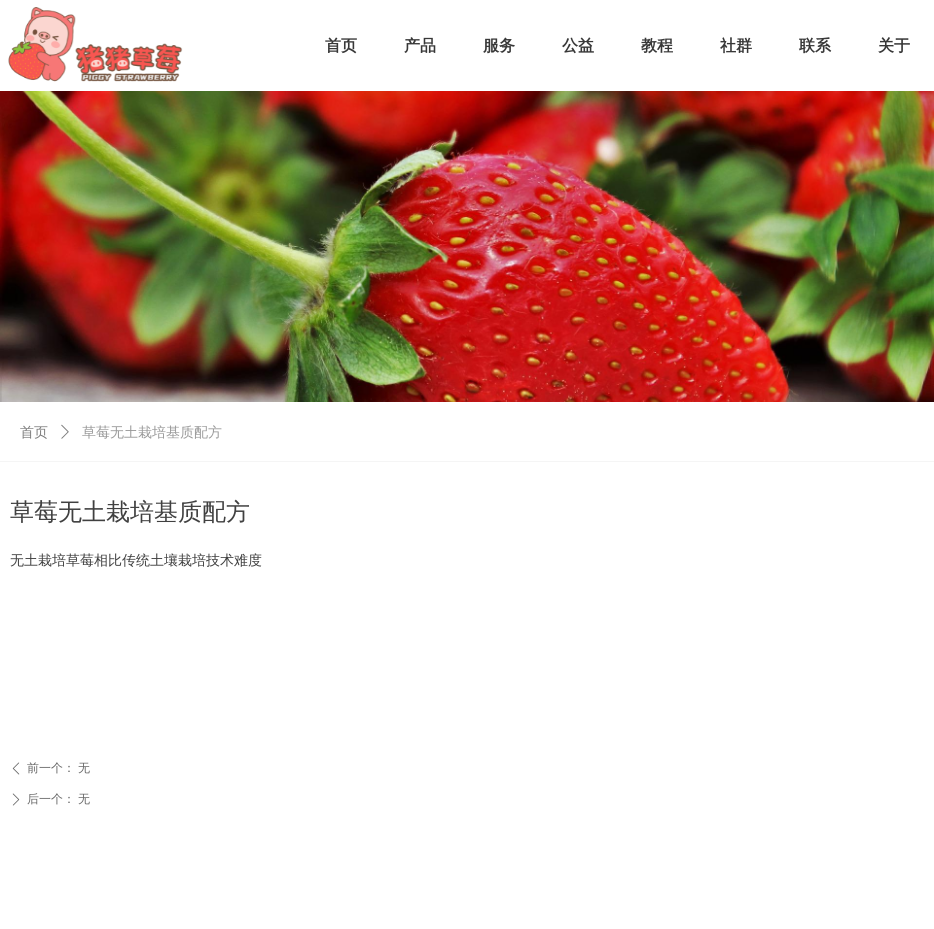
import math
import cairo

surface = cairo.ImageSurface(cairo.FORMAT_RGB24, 934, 929)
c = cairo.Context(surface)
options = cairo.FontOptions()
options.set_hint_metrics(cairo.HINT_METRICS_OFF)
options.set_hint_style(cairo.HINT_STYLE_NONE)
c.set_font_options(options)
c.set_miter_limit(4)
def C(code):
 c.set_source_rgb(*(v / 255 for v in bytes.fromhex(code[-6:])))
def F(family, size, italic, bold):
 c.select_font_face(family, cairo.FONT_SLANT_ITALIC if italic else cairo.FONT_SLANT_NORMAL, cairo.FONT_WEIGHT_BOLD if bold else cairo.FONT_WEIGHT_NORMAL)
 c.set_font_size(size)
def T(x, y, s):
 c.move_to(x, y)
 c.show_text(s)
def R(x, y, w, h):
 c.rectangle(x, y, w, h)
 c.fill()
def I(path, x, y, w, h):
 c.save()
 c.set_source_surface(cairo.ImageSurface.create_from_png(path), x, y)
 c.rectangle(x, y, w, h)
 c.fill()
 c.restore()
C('ffffff')
c.paint()
I('1.png',8,7,175,75)
F('WenQuanYi Zen Hei',16,0,1)
C('383838')
T(325,51,'首页')
T(404,51,'产品')
T(483,51,'服务')
T(562,51,'公益')
T(641,51,'教程')
T(720,51,'社群')
T(799,51,'联系')
T(878,51,'关于')
I('2.png',0,91,934,311)
F('WenQuanYi Zen Hei Medium',14,0,0)
C('7c7c7c')
T(20,437,'首页')
I('3.png',61,424,8,15)
C('999999')
T(82,437,'草莓无土栽培基质配方')
C('f5f5f5')
R(0,461,934,1)
F('WenQuanYi Zen Hei Medium',24,0,0)
C('404040')
T(10,520,'草莓无土栽培基质配方')
F('WenQuanYi Zen Hei Medium',14,0,0)
T(10,565,'无土栽培草莓相比传统土壤栽培技术难度')
I('4.png',12,762,8,13)
F('WenQuanYi Zen Hei Medium',12,0,0)
C('666666')
T(27,772,'前一个：')
T(78,772,'无')
I('5.png',12,793,8,13)
T(27,803,'后一个：')
T(78,803,'无')
surface.write_to_png('o.png')
